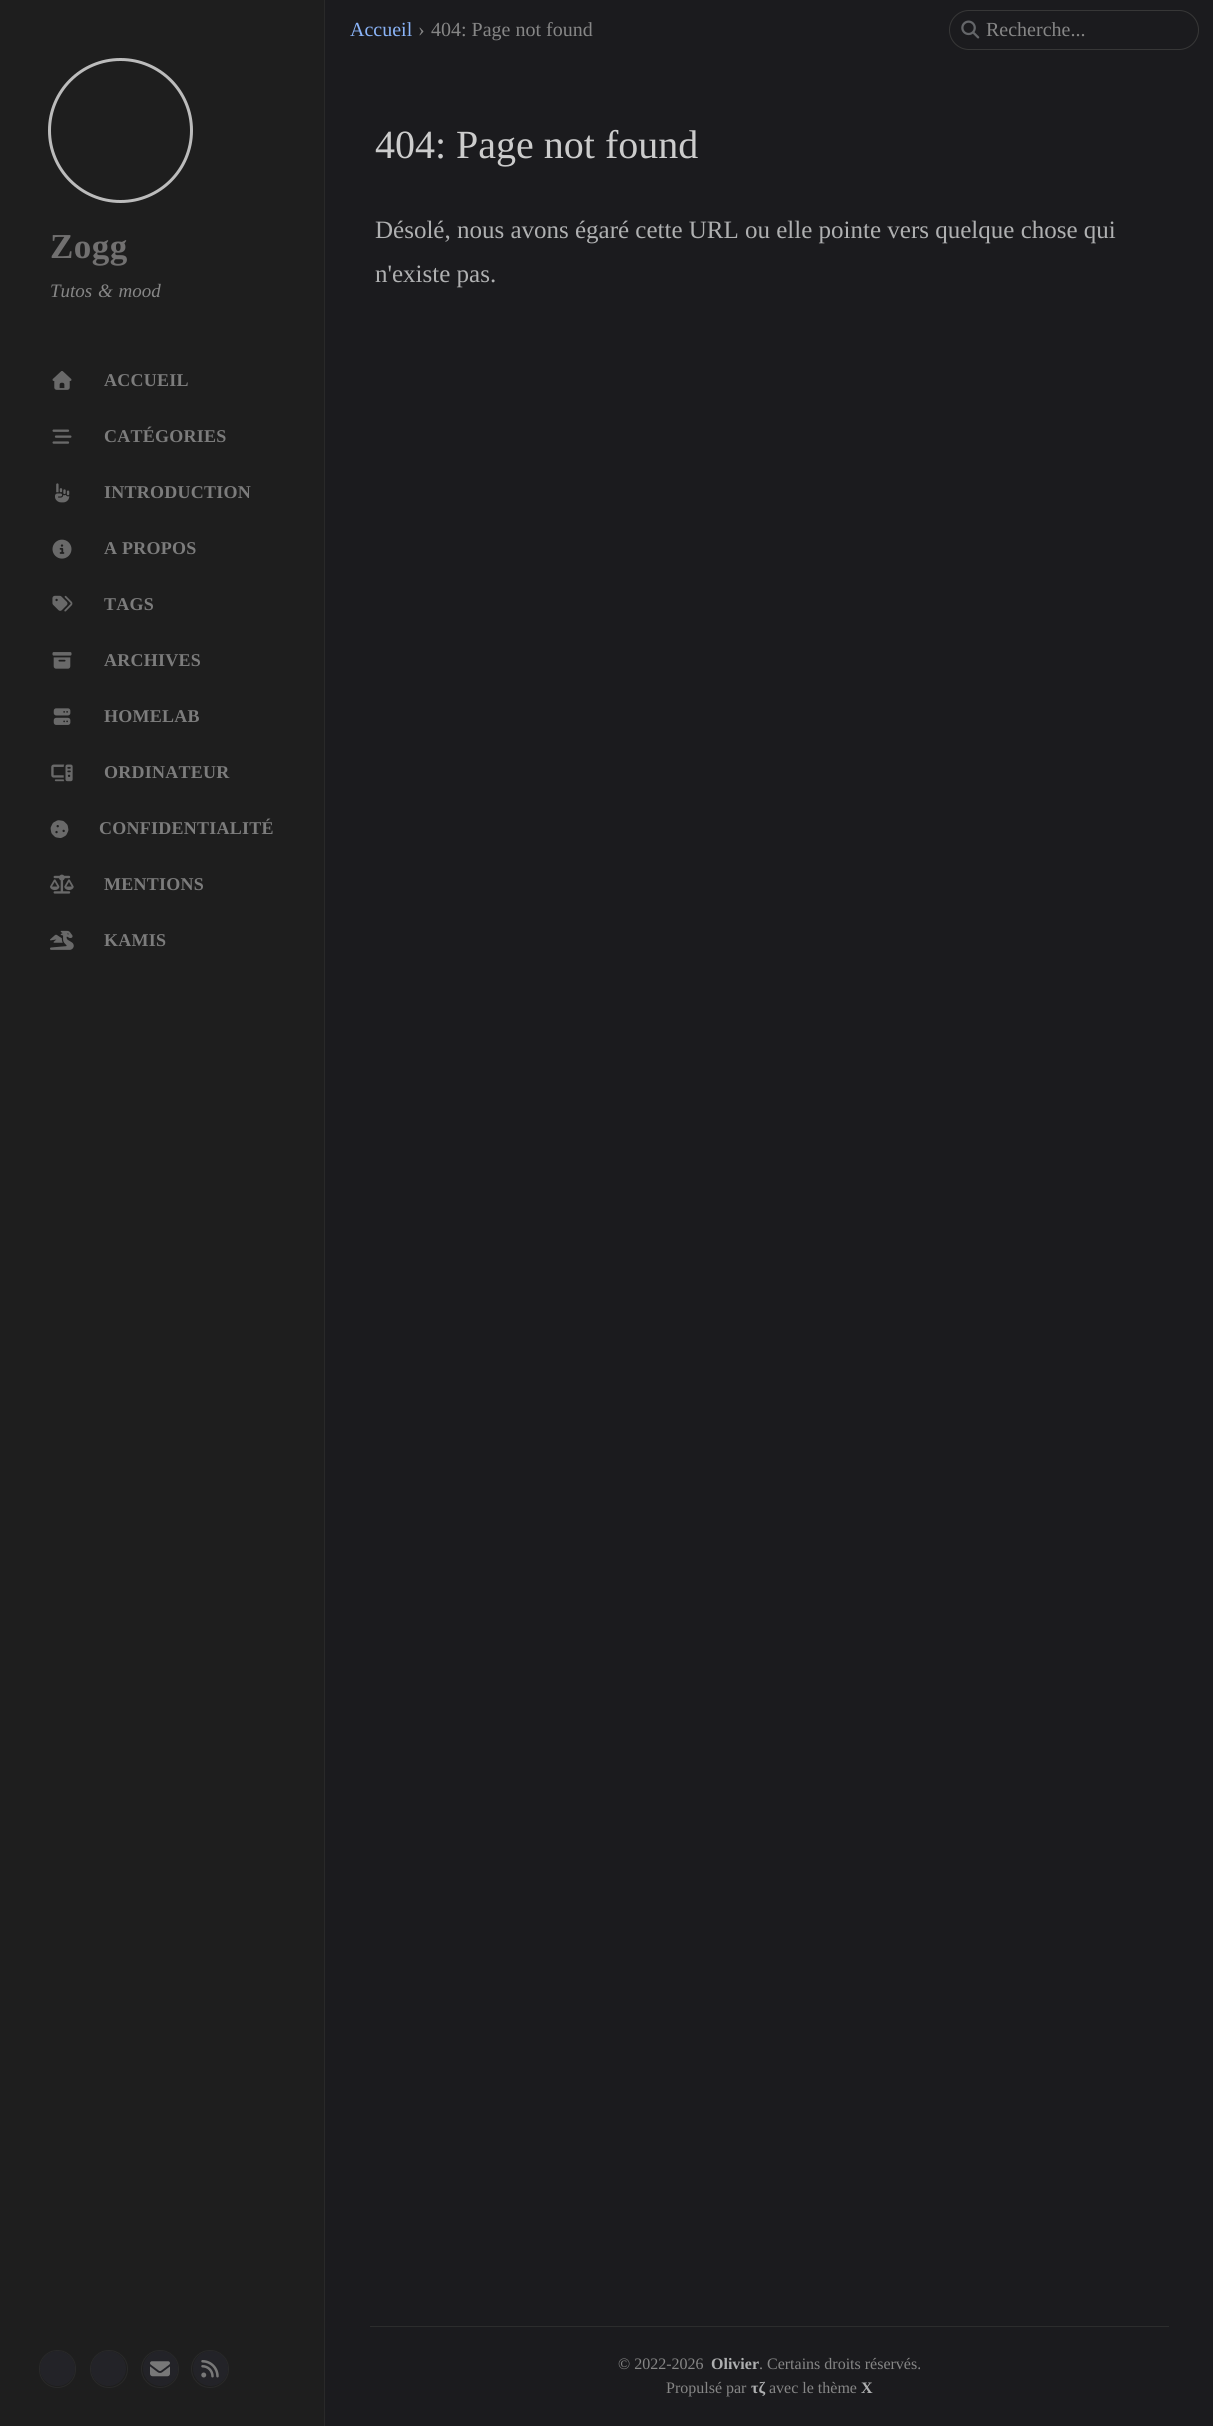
import math
import cairo

surface = cairo.ImageSurface(cairo.FORMAT_RGB24, 1213, 2426)
c = cairo.Context(surface)
options = cairo.FontOptions()
options.set_hint_metrics(cairo.HINT_METRICS_OFF)
options.set_hint_style(cairo.HINT_STYLE_NONE)
c.set_font_options(options)
c.set_miter_limit(4)
def C(code):
 c.set_source_rgb(*(v / 255 for v in bytes.fromhex(code[-6:])))
def F(family, size, italic, bold):
 c.select_font_face(family, cairo.FONT_SLANT_ITALIC if italic else cairo.FONT_SLANT_NORMAL, cairo.FONT_WEIGHT_BOLD if bold else cairo.FONT_WEIGHT_NORMAL)
 c.set_font_size(size)
def T(x, y, s):
 c.move_to(x, y)
 c.show_text(s)
def L(x, y, s, letter, word):
 c.move_to(x, y)
 for ch in s:
  c.show_text(ch)
  c.rel_move_to(letter + word * (ch == ' '), 0)
def R(x, y, w, h):
 c.rectangle(x, y, w, h)
 c.fill()
def Q(x, y, w, h, r):
 c.new_sub_path()
 for i, (u, v) in enumerate([(x + w - r, y + h - r), (x + r, y + h - r), (x + r, y + r), (x + w - r, y + r)]):
  c.arc(u, v, r, i * math.pi / 2, (i + 1) * math.pi / 2)
 c.close_path()
def I(path, x, y, w, h):
 c.save()
 c.set_source_surface(cairo.ImageSurface.create_from_png(path), x, y)
 c.rectangle(x, y, w, h)
 c.fill()
 c.restore()
C('1b1b1e')
c.paint()
C('1e1e1e')
R(0,0,324,2426)
C('292929')
R(324,0,1,2426)
c.arc(120.5,130.5,71,0,2 * math.pi)
C('bcbcbc')
c.set_line_width(3)
c.stroke()
F('Liberation Serif',35,0,1)
C('717070')
L(50,258,'Zogg',.5,0)
F('Liberation Serif',19,1,0)
C('868686')
L(50,297,'Tutos & mood',0,1)
I('1.png',52,371,20,19)
F('Liberation Serif',18,0,1)
C('7c7c7c')
L(104,386,'ACCUEIL',.25,0)
I('2.png',52,429,20,15)
L(104,442,'CATÉGORIES',.25,0)
I('3.png',55,483,15,20)
L(104,498,'INTRODUCTION',.25,0)
I('4.png',52,539,20,20)
L(104,554,'A PROPOS',.25,0)
I('5.png',52,595,21,17)
L(104,610,'TAGS',.25,0)
I('6.png',52,652,20,17)
L(104,666,'ARCHIVES',.25,0)
I('7.png',53,708,18,17)
L(104,722,'HOMELAB',.25,0)
I('8.png',51,764,22,18)
L(104,778,'ORDINATEUR',.25,0)
I('9.png',50,820,19,18)
L(99,834,'CONFIDENTIALITÉ',.25,0)
I('10.png',50,874,24,20)
L(104,890,'MENTIONS',.25,0)
I('11.png',50,930,24,20)
L(104,946,'KAMIS',.25,0)
Q(39.5,2350.5,36,37,18)
C('292929')
c.set_line_width(1)
c.stroke()
C('232328')
c.arc(57.5,2368.5,17.5,0,2 * math.pi)
c.fill()
c.arc(109,2369,18.5,0,2 * math.pi)
C('292929')
c.stroke()
C('232328')
c.arc(108.5,2368.5,17.5,0,2 * math.pi)
c.fill()
c.arc(160,2369,18.5,0,2 * math.pi)
C('292929')
c.stroke()
C('232328')
c.arc(160.5,2368.5,17.5,0,2 * math.pi)
c.fill()
I('12.png',150,2361,20,16)
c.arc(210,2369,18.5,0,2 * math.pi)
C('292929')
c.stroke()
C('232328')
c.arc(210.5,2368.5,17.5,0,2 * math.pi)
c.fill()
I('13.png',201,2360,18,18)
F('Liberation Serif',20,0,0)
C('8ab4f8')
T(350,36,'Accueil')
C('868686')
T(418,36,'›')
T(431,36,'404: Page not found')
Q(949.5,10.5,249,39,19.5)
C('373737')
c.stroke()
I('14.png',961,20,19,19)
C('868686')
T(986,36,'Recherche...')
F('Liberation Serif',40,0,0)
C('cccccc')
T(375,158,'404: Page not found')
F('Liberation Serif',25,0,0)
C('afb0b1')
T(375,238,'Désolé, nous avons égaré cette URL ou elle pointe vers quelque chose qui')
T(375,282,'n\'existe pas.')
C('2c2d2d')
R(370,2326,799,1)
F('Liberation Serif',16,0,0)
C('868686')
T(618,2369,'© 2022-2026')
F('Liberation Serif',16,0,1)
C('afb0b1')
T(711,2369,'Olivier')
F('Liberation Serif',16,0,0)
C('868686')
T(759,2369,'. Certains droits réservés.')
T(666,2393,'Propulsé par')
F('Liberation Serif',16,0,1)
C('afb0b1')
T(751,2393,'τζ')
F('Liberation Serif',16,0,0)
C('868686')
T(769,2393,'avec le thème')
F('Liberation Serif',16,0,1)
C('afb0b1')
T(861,2393,'Χ')
surface.write_to_png('o.png')
